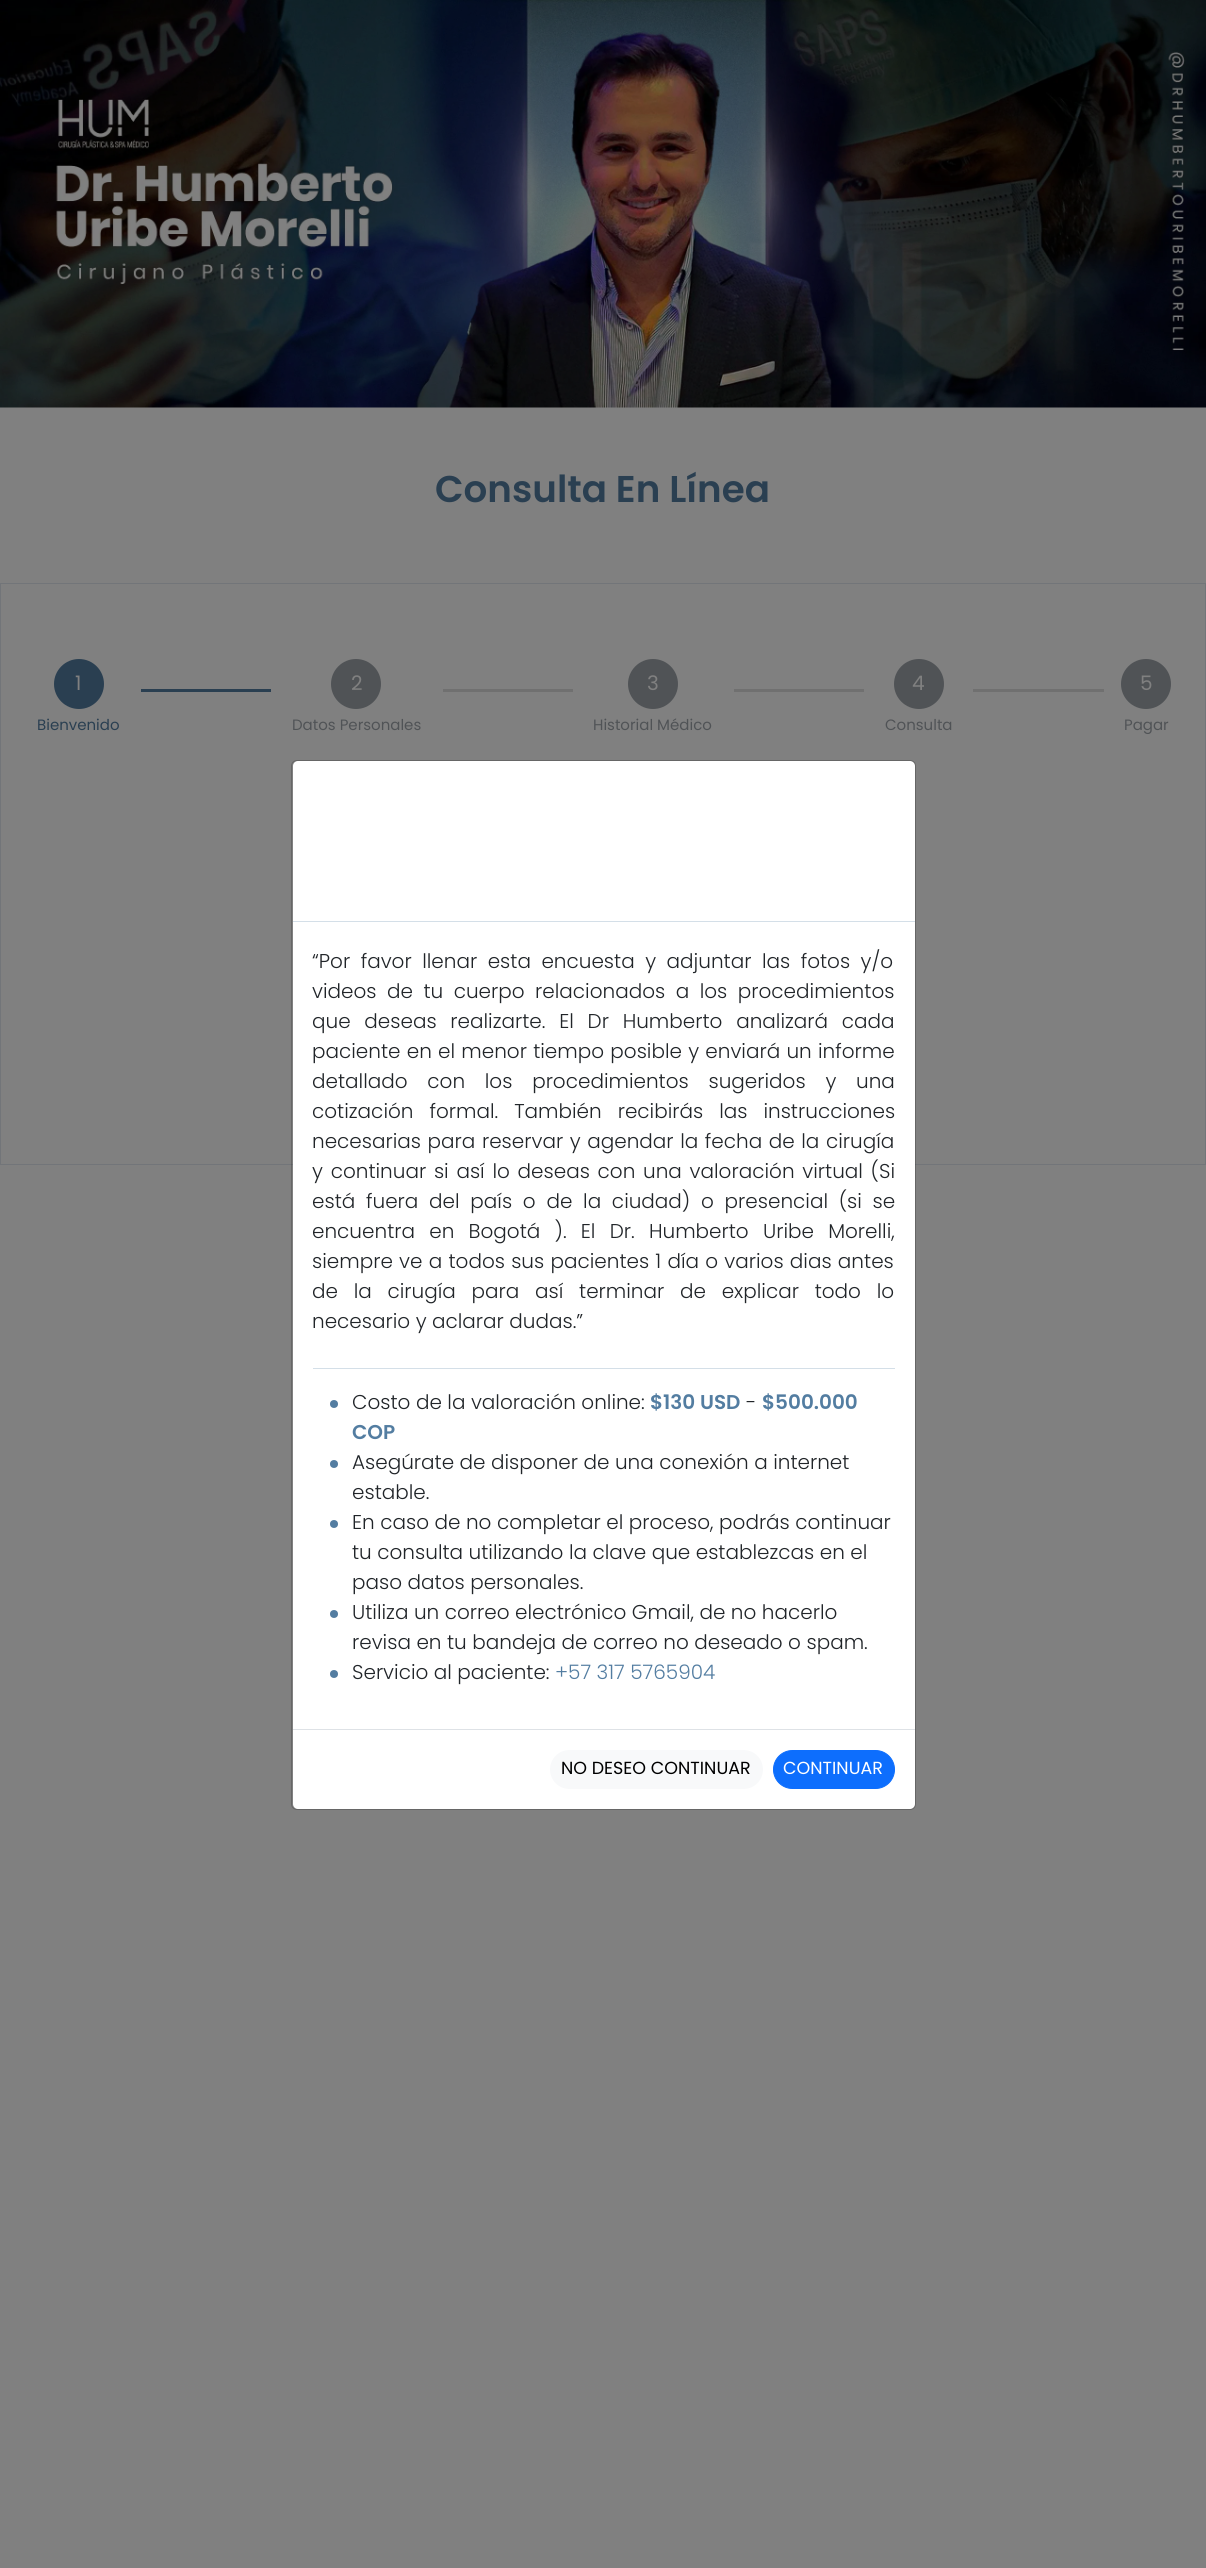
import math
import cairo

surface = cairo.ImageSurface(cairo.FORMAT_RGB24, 1206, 2568)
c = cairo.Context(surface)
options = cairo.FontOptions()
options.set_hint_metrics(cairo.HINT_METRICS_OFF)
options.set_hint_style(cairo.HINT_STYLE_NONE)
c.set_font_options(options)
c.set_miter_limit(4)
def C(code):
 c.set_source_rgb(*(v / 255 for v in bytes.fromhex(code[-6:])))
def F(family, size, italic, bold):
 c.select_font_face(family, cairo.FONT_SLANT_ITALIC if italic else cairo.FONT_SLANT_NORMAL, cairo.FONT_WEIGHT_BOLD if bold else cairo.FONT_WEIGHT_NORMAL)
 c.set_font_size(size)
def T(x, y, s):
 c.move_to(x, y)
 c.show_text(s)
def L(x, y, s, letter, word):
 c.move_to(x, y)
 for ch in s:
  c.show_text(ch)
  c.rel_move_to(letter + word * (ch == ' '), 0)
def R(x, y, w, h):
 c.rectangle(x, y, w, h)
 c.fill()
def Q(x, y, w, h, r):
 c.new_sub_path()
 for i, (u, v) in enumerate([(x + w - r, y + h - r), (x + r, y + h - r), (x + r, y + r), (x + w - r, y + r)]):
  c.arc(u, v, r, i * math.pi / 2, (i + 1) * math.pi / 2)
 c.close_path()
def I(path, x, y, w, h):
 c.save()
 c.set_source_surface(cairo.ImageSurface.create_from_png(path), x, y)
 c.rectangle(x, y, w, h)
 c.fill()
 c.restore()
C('808080')
c.paint()
I('1.png',0,0,1206,408)
F('Poppins SemiBold',37.25,0,0)
C('2a3f51')
T(435,502,'Consulta En Línea')
c.rectangle(.5,583.5,1205,581)
C('727579')
c.set_line_width(1)
c.stroke()
C('2a3f51')
c.arc(79,684,25,0,2 * math.pi)
c.fill()
F('Poppins',20,0,0)
C('808080')
T(75,690,'1')
F('Poppins',15,0,0)
C('2a3f51')
T(37,730,'Bienvenido')
R(141,689,130,3)
C('505356')
c.new_path()
c.arc(356,684,25,0,2 * math.pi)
c.fill()
F('Poppins',20,0,0)
C('808080')
T(351,690,'2')
F('Poppins',15,0,0)
C('505356')
T(292,730,'Datos Personales')
C('707070')
R(443,689,130,3)
C('505356')
c.new_path()
c.arc(653,684,25,0,2 * math.pi)
c.fill()
F('Poppins',20,0,0)
C('808080')
T(647,690,'3')
F('Poppins',15,0,0)
C('505356')
T(593,730,'Historial Médico')
C('707070')
R(734,689,130,3)
C('505356')
c.new_path()
c.arc(919,684,25,0,2 * math.pi)
c.fill()
F('Poppins',20,0,0)
C('808080')
T(912,690,'4')
F('Poppins',15,0,0)
C('505356')
T(885,730,'Consulta')
C('707070')
R(973,689,131,3)
C('505356')
c.new_path()
c.arc(1146,684,25,0,2 * math.pi)
c.fill()
F('Poppins',20,0,0)
C('808080')
T(1140,690,'5')
F('Poppins',15,0,0)
C('505356')
T(1124,730,'Pagar')
C('ffffff')
Q(293,761,622,1048,5)
c.fill()
Q(291.5,760.5,624,1049,5.5)
c.set_source_rgba(0,0,0,0.2)
c.stroke()
C('d4dfe8')
R(293,921,622,1)
F('Poppins Light',20,0,0)
C('212529')
L(312,968,'“Por favor llenar esta encuesta y adjuntar las fotos y/o',0,5)
L(312,998,'videos de tu cuerpo relacionados a los procedimientos',0,5)
L(312,1028,'que deseas realizarte. El Dr Humberto analizará cada',0,8.25)
L(312,1058,'paciente en el menor tiempo posible y enviará un informe',0,.75)
L(312,1088,'detallado con los procedimientos sugeridos y una',0,14.25)
L(312,1118,'cotización formal. También recibirás las instrucciones',0,10.5)
L(312,1148,'necesarias para reservar y agendar la fecha de la cirugía',0,1.1)
L(312,1178,'y continuar si así lo deseas con una valoración virtual (Si',0,2.25)
L(312,1208,'está fuera del país o de la ciudad) o presencial (si se',0,5.25)
L(312,1238,'encuentra en Bogotá ). El Dr. Humberto Uribe Morelli,',0,8.75)
L(312,1268,'siempre ve a todos sus pacientes 1 día o varios dias antes',0,.75)
L(312,1298,'de la cirugía para así terminar de explicar todo lo',0,10.25)
T(312,1328,'necesario y aclarar dudas.”')
C('d4dfe8')
R(313,1368,582,1)
C('537da1')
c.new_path()
c.arc(334,1404,4,0,2 * math.pi)
c.fill()
C('212529')
T(352,1409,'Costo de la valoración online:')
F('Poppins SemiBold',20,0,0)
C('537da1')
T(650,1409,'$130 USD')
F('Poppins Light',20,0,0)
C('212529')
T(746,1409,'-')
F('Poppins SemiBold',20,0,0)
C('537da1')
T(762,1409,'$500.000')
T(352,1439,'COP')
c.new_path()
c.arc(334,1464,4,0,2 * math.pi)
c.fill()
F('Poppins Light',20,0,0)
C('212529')
T(352,1469,'Asegúrate de disponer de una conexión a internet')
T(352,1499,'estable.')
C('537da1')
c.new_path()
c.arc(334,1524,4,0,2 * math.pi)
c.fill()
C('212529')
T(352,1529,'En caso de no completar el proceso, podrás continuar')
T(352,1559,'tu consulta utilizando la clave que establezcas en el')
T(352,1589,'paso datos personales.')
C('537da1')
c.new_path()
c.arc(334,1614,4,0,2 * math.pi)
c.fill()
C('212529')
T(352,1619,'Utiliza un correo electrónico Gmail, de no hacerlo')
T(352,1649,'revisa en tu bandeja de correo no deseado o spam.')
C('537da1')
c.new_path()
c.arc(334,1674,4,0,2 * math.pi)
c.fill()
C('212529')
T(352,1679,'Servicio al paciente:')
C('537da1')
T(555,1679,'+57 317 5765904')
C('dee2e6')
R(293,1729,622,1)
C('f8f9fa')
Q(550,1750,213,39,19.5)
c.fill()
F('Poppins',17.5,0,0)
C('000000')
T(561,1774,'NO DESEO CONTINUAR')
C('0d6efd')
Q(773.5,1750.5,121,38,19)
c.fill_preserve()
c.stroke()
C('ffffff')
T(783,1774,'CONTINUAR')
surface.write_to_png('o.png')
